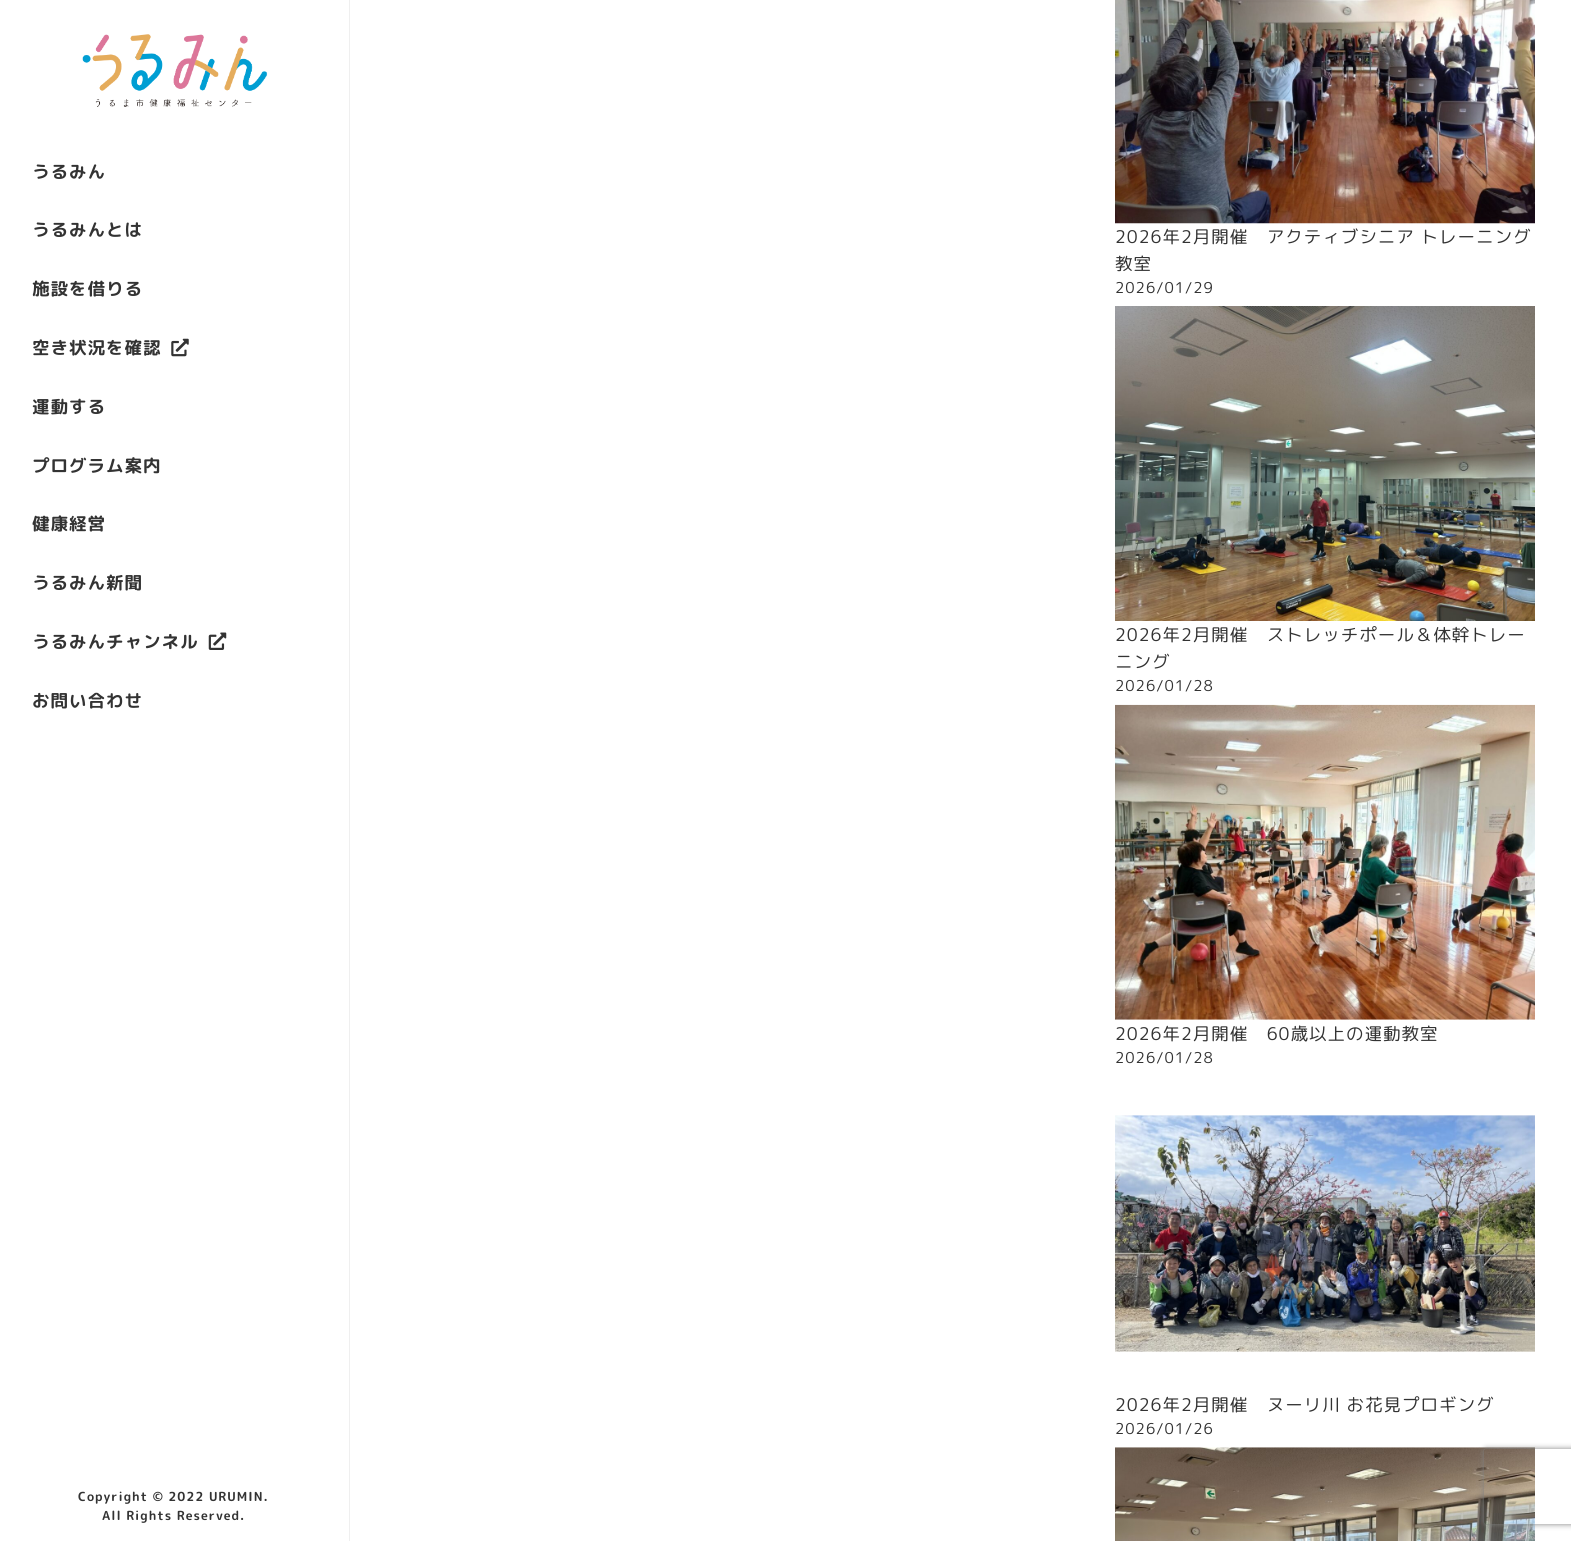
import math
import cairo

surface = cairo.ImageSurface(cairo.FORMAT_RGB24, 1571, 1541)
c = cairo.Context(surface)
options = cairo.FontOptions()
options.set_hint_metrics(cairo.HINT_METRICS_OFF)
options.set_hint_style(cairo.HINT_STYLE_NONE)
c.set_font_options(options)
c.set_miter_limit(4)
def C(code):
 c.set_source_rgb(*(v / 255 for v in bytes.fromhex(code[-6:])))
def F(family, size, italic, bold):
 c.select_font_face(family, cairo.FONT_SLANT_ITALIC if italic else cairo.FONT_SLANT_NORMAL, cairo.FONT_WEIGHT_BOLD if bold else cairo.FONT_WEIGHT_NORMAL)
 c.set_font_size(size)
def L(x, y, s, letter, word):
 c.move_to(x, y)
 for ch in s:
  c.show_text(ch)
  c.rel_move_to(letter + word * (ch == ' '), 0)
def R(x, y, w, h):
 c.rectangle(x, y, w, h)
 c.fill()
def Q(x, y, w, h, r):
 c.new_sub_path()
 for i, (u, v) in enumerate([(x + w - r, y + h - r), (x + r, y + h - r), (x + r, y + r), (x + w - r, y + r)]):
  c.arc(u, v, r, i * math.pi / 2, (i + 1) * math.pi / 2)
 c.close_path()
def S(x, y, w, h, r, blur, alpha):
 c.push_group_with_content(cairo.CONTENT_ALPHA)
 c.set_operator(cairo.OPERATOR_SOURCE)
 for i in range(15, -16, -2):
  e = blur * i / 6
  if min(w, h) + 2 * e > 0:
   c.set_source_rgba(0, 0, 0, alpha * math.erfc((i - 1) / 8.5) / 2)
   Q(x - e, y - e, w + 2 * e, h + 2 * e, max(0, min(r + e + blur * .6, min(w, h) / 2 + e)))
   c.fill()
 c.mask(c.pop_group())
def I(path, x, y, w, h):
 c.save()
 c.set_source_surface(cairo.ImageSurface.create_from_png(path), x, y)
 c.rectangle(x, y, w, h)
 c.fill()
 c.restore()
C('ffffff')
c.paint()
C('efefef')
R(349,0,1,1541)
I('1.png',82,34,186,73)
F('Rounded Mplus 1c Bold',17.5,0,1)
C('333333')
L(32,178,'うるみん',1,0)
L(32,236,'うるみんとは',1,0)
L(32,295,'施設を借りる',1,0)
L(32,354,'空き状況を確認',1,0)
I('2.png',171,338,18,19)
L(32,413,'運動する',1,0)
L(32,472,'プログラム案内',1,0)
L(32,530,'健康経営',1,0)
L(32,589,'うるみん新聞',1,0)
L(32,648,'うるみんチャンネル',1,0)
I('3.png',208,632,19,18)
L(32,707,'お問い合わせ',1,0)
I('4.png',1115,0,420,224)
F('Rounded Mplus 1c',17.5,0,0)
L(1115,243,'2026年2月開催　アクティブシニア トレーニング',1,0)
L(1115,270,'教室',1,0)
F('Rounded Mplus 1c',15,0,0)
L(1115,293,'2026/01/29',1,0)
I('5.png',1115,306,420,315)
F('Rounded Mplus 1c',17.5,0,0)
L(1115,641,'2026年2月開催　ストレッチポール＆体幹トレー',1,0)
L(1115,668,'ニング',1,0)
F('Rounded Mplus 1c',15,0,0)
L(1115,691,'2026/01/28',1,0)
I('6.png',1115,704,420,316)
F('Rounded Mplus 1c',17.5,0,0)
L(1115,1040,'2026年2月開催　60歳以上の運動教室',1,0)
F('Rounded Mplus 1c',15,0,0)
L(1115,1063,'2026/01/28',1,0)
I('7.png',1115,1115,420,237)
F('Rounded Mplus 1c',17.5,0,0)
L(1115,1411,'2026年2月開催　ヌーリ川 お花見プロギング',1,0)
F('Rounded Mplus 1c',15,0,0)
L(1115,1434,'2026/01/26',1,0)
I('8.png',1115,1447,420,94)
F('Rounded Mplus 1c Bold',12.5,0,1)
L(78,1501,'Copyright © 2022 URUMIN.',1,0)
L(102,1520,'All Rights Reserved.',1,0)
c.save()
c.set_fill_rule(cairo.FILL_RULE_EVEN_ODD)
c.new_path()
c.move_to(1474,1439)
c.line_to(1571,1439)
c.line_to(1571,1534)
c.line_to(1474,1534)
c.close_path()
c.move_to(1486.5,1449)
c.line_to(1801.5,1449)
c.curve_to(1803,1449,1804,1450,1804,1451.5)
c.line_to(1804,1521.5)
c.curve_to(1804,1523,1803,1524,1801.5,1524)
c.line_to(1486.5,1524)
c.curve_to(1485,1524,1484,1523,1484,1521.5)
c.line_to(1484,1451.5)
c.curve_to(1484,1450,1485,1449,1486.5,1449)
c.close_path()
c.clip()
C('808080')
S(1484,1449,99,75,2.5,3,1)
c.restore()
surface.write_to_png('o.png')
